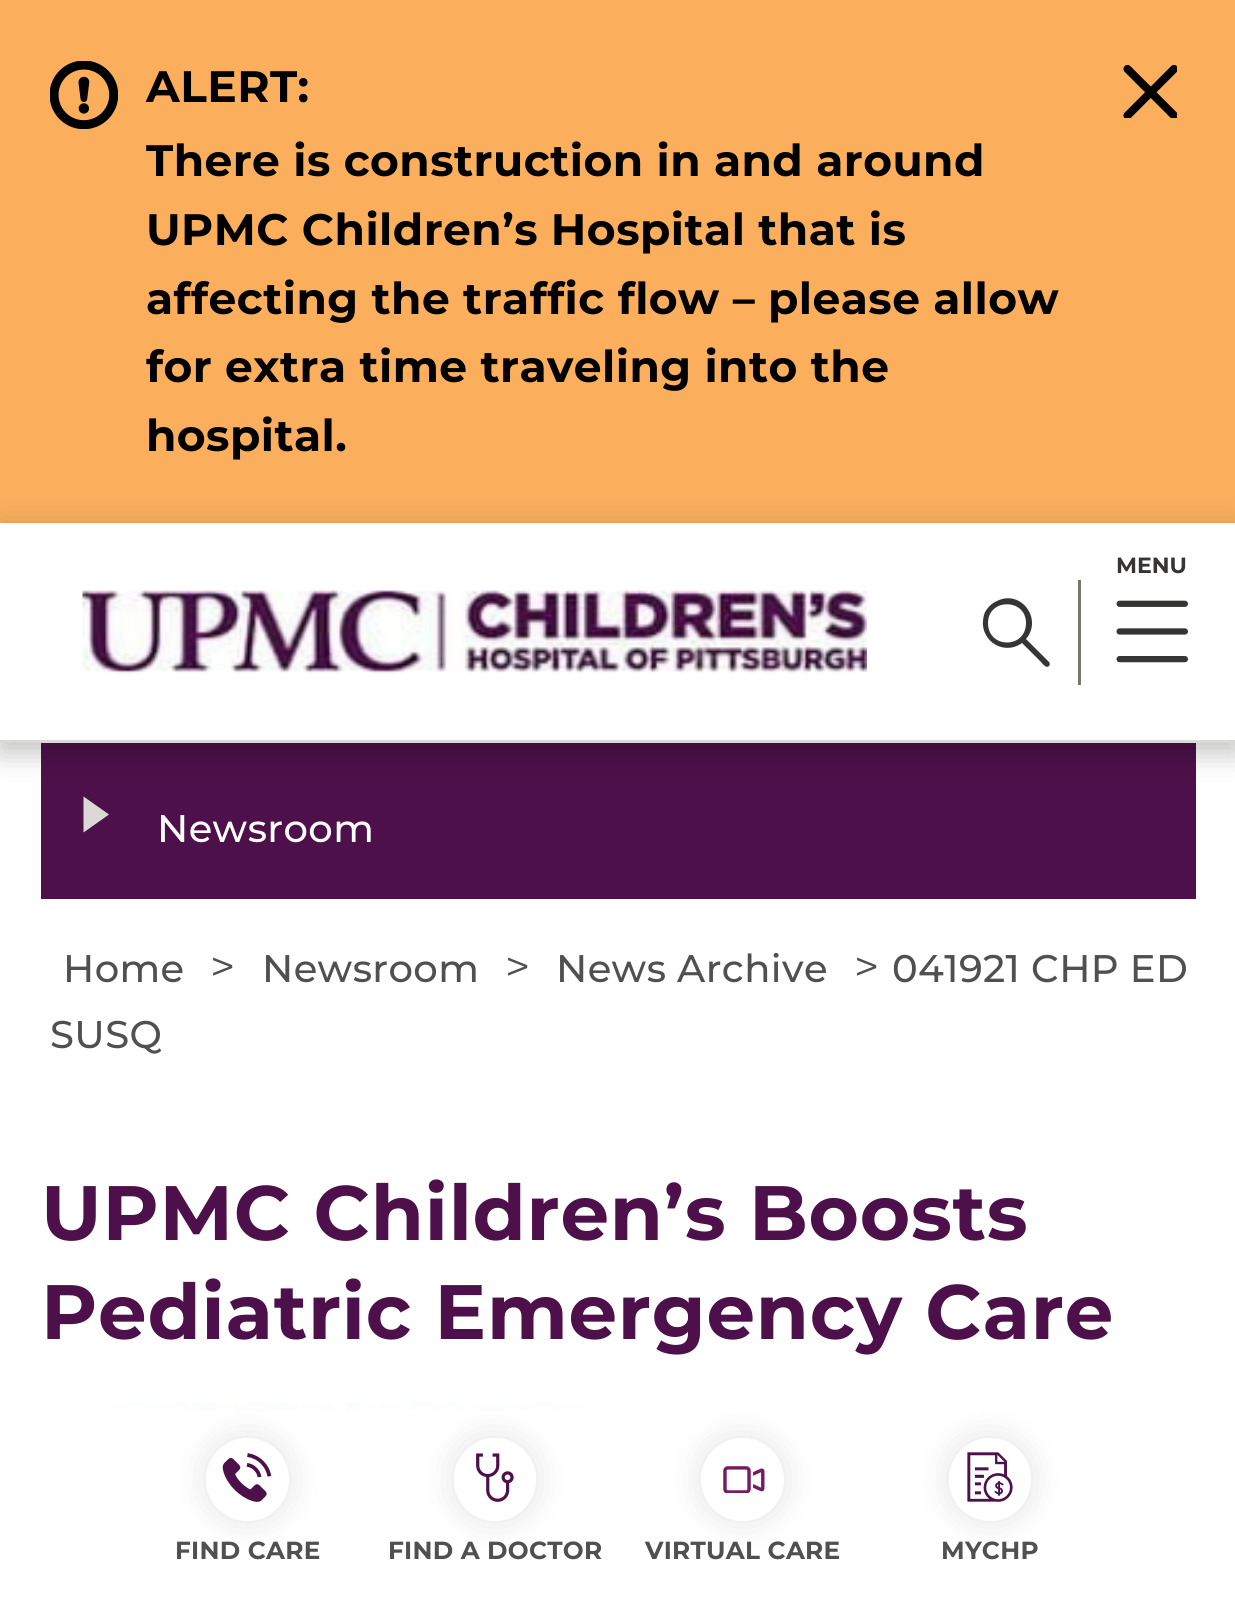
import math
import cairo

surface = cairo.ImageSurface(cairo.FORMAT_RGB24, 1235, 1615)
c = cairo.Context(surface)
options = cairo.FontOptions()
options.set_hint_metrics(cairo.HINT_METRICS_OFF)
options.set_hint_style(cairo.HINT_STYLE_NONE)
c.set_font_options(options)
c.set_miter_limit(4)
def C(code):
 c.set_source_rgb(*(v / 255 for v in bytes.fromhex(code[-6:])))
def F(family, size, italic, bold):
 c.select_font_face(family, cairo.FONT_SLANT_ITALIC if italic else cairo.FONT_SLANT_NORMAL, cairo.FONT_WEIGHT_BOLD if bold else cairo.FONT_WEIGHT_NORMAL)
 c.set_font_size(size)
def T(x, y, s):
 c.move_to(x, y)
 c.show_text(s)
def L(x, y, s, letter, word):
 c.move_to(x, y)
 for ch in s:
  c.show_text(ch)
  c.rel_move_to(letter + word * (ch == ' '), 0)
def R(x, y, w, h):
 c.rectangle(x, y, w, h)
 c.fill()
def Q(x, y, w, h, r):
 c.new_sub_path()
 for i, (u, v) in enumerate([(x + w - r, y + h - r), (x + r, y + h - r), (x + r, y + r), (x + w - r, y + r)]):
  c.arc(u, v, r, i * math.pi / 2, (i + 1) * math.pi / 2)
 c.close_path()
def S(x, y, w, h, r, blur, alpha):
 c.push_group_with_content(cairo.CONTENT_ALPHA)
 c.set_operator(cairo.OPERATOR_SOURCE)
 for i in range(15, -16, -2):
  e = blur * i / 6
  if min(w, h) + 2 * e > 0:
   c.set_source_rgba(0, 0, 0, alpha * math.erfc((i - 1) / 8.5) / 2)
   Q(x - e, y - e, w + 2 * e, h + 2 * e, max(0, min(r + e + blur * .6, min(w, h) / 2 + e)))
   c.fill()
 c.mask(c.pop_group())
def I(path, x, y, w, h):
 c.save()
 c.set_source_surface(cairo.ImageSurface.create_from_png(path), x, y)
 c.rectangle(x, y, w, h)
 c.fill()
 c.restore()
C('ffffff')
c.paint()
C('4d104a')
R(41,743,1155,156)
C('dbd9d6')
c.new_path()
c.move_to(109,814.5)
c.line_to(83.5,832.5)
c.line_to(83.5,796.5)
c.close_path()
c.fill()
C('000000')
S(0,14,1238,742,0,14,.16)
C('fbaf5d')
R(0,0,1235,523)
I('1.png',50,61,68,68)
F('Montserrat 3 Thin',44,0,0)
C('000000')
L(146,102,'ALERT:',.45,0)
c.save()
c.rectangle(1122,63,55,55)
c.clip()
c.new_path()
c.move_to(1127.5,69)
c.line_to(1174,115.5)
c.move_to(1127.5,115.5)
c.line_to(1174,69)
c.set_line_width(8.1)
c.set_line_cap(cairo.LINE_CAP_ROUND)
c.stroke()
c.restore()
L(146,176,'There is construction in and around',.45,0)
L(146,245,'UPMC Children’s Hospital that is',.45,0)
L(146,314,'affecting the traffic flow – please allow',.45,0)
L(146,382,'for extra time traveling into the',.45,0)
L(146,451,'hospital.',.45,0)
C('000000')
S(0,523,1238,220,0,14,.13)
C('ffffff')
R(0,523,1235,217)
C('dbd9d6')
R(0,740,1235,3)
F('Montserrat 3 Thin',22,0,0)
C('363533')
T(1116,573,'MENU')
I('2.png',1116,600,72,63)
C('75776f')
R(1078,580,3,105)
C('363533')
c.new_path()
c.move_to(988,623)
c.curve_to(988,598,1026,598,1026,623)
c.curve_to(1026,649,988,649,988,623)
c.close_path()
c.move_to(1049,662)
c.line_to(1026,639)
c.curve_to(1043,619,1021,589,997,601)
c.curve_to(992,603,988,607,985,612)
c.curve_to(982,620,982,628,986,635)
c.curve_to(993,648,1010,652,1022,643)
c.line_to(1041,662)
c.curve_to(1042,663,1046,669,1049,666)
c.curve_to(1050,665,1050,663,1049,662)
c.close_path()
c.fill()
I('3.png',82,590,785,84)
F('Montserrat Thin',38.5,0,0)
C('ffffff')
L(157,842,'Newsroom',.4,0)
C('505050')
L(63,982,'Home',.4,0)
F('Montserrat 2 Thin',44,0,0)
L(210,982,'>',.45,0)
F('Montserrat Thin',38.5,0,0)
L(262,982,'Newsroom',.4,0)
F('Montserrat 2 Thin',44,0,0)
L(505,982,'>',.45,0)
F('Montserrat Thin',38.5,0,0)
L(556,982,'News Archive',.4,0)
F('Montserrat 2 Thin',44,0,0)
L(854,982,'>',.45,0)
F('Montserrat Thin',38.5,0,0)
L(892,982,'041921 CHP ED',.4,0)
L(50,1048,'SUSQ',.4,0)
F('Montserrat 3 Thin',77,0,0)
C('4d104a')
L(41,1240,'UPMC Children’s Boosts',.75,0)
L(41,1339,'Pediatric Emergency Care',.75,0)
I('4.png',104,1402,504,9)
c.save()
c.set_fill_rule(cairo.FILL_RULE_EVEN_ODD)
c.new_path()
c.move_to(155,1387)
c.line_to(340,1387)
c.line_to(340,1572)
c.line_to(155,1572)
c.close_path()
c.move_to(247.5,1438)
c.curve_to(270.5,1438,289,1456.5,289,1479.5)
c.curve_to(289,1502.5,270.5,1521,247.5,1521)
c.curve_to(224.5,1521,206,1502.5,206,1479.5)
c.curve_to(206,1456.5,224.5,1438,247.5,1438)
c.close_path()
c.clip()
C('000000')
S(206,1438,83,83,41.5,16.5,.11)
c.restore()
I('5.png',222,1453,50,49)
F('Montserrat 3 Thin',24.75,0,0)
C('505050')
L(175,1559,'FIND CARE',.25,0)
c.save()
c.set_fill_rule(cairo.FILL_RULE_EVEN_ODD)
c.new_path()
c.move_to(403,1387)
c.line_to(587,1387)
c.line_to(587,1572)
c.line_to(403,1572)
c.close_path()
c.move_to(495,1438)
c.curve_to(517.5,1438,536,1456.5,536,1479)
c.line_to(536,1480)
c.curve_to(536,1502.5,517.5,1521,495,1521)
c.curve_to(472.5,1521,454,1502.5,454,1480)
c.line_to(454,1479)
c.curve_to(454,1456.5,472.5,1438,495,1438)
c.close_path()
c.clip()
C('000000')
S(454,1438,82,83,41,16.5,.11)
c.restore()
I('6.png',476,1453,38,49)
L(388,1559,'FIND A DOCTOR',.25,0)
c.save()
c.set_fill_rule(cairo.FILL_RULE_EVEN_ODD)
c.new_path()
c.move_to(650,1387)
c.line_to(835,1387)
c.line_to(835,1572)
c.line_to(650,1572)
c.close_path()
c.move_to(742.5,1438)
c.curve_to(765.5,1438,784,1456.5,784,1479.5)
c.curve_to(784,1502.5,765.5,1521,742.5,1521)
c.curve_to(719.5,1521,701,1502.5,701,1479.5)
c.curve_to(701,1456.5,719.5,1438,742.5,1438)
c.close_path()
c.clip()
C('000000')
S(701,1438,83,83,41.5,16.5,.11)
c.restore()
I('7.png',723,1466,42,27)
L(645,1559,'VIRTUAL CARE',.25,0)
c.save()
c.set_fill_rule(cairo.FILL_RULE_EVEN_ODD)
c.new_path()
c.move_to(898,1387)
c.line_to(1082,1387)
c.line_to(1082,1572)
c.line_to(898,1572)
c.close_path()
c.move_to(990,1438)
c.curve_to(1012.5,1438,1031,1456.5,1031,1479)
c.line_to(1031,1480)
c.curve_to(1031,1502.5,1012.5,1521,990,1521)
c.curve_to(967.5,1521,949,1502.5,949,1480)
c.line_to(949,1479)
c.curve_to(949,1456.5,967.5,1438,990,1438)
c.close_path()
c.clip()
C('000000')
S(949,1438,82,83,41,16.5,.11)
c.restore()
I('8.png',967,1452,46,50)
L(941,1559,'MYCHP',.25,0)
surface.write_to_png('o.png')
